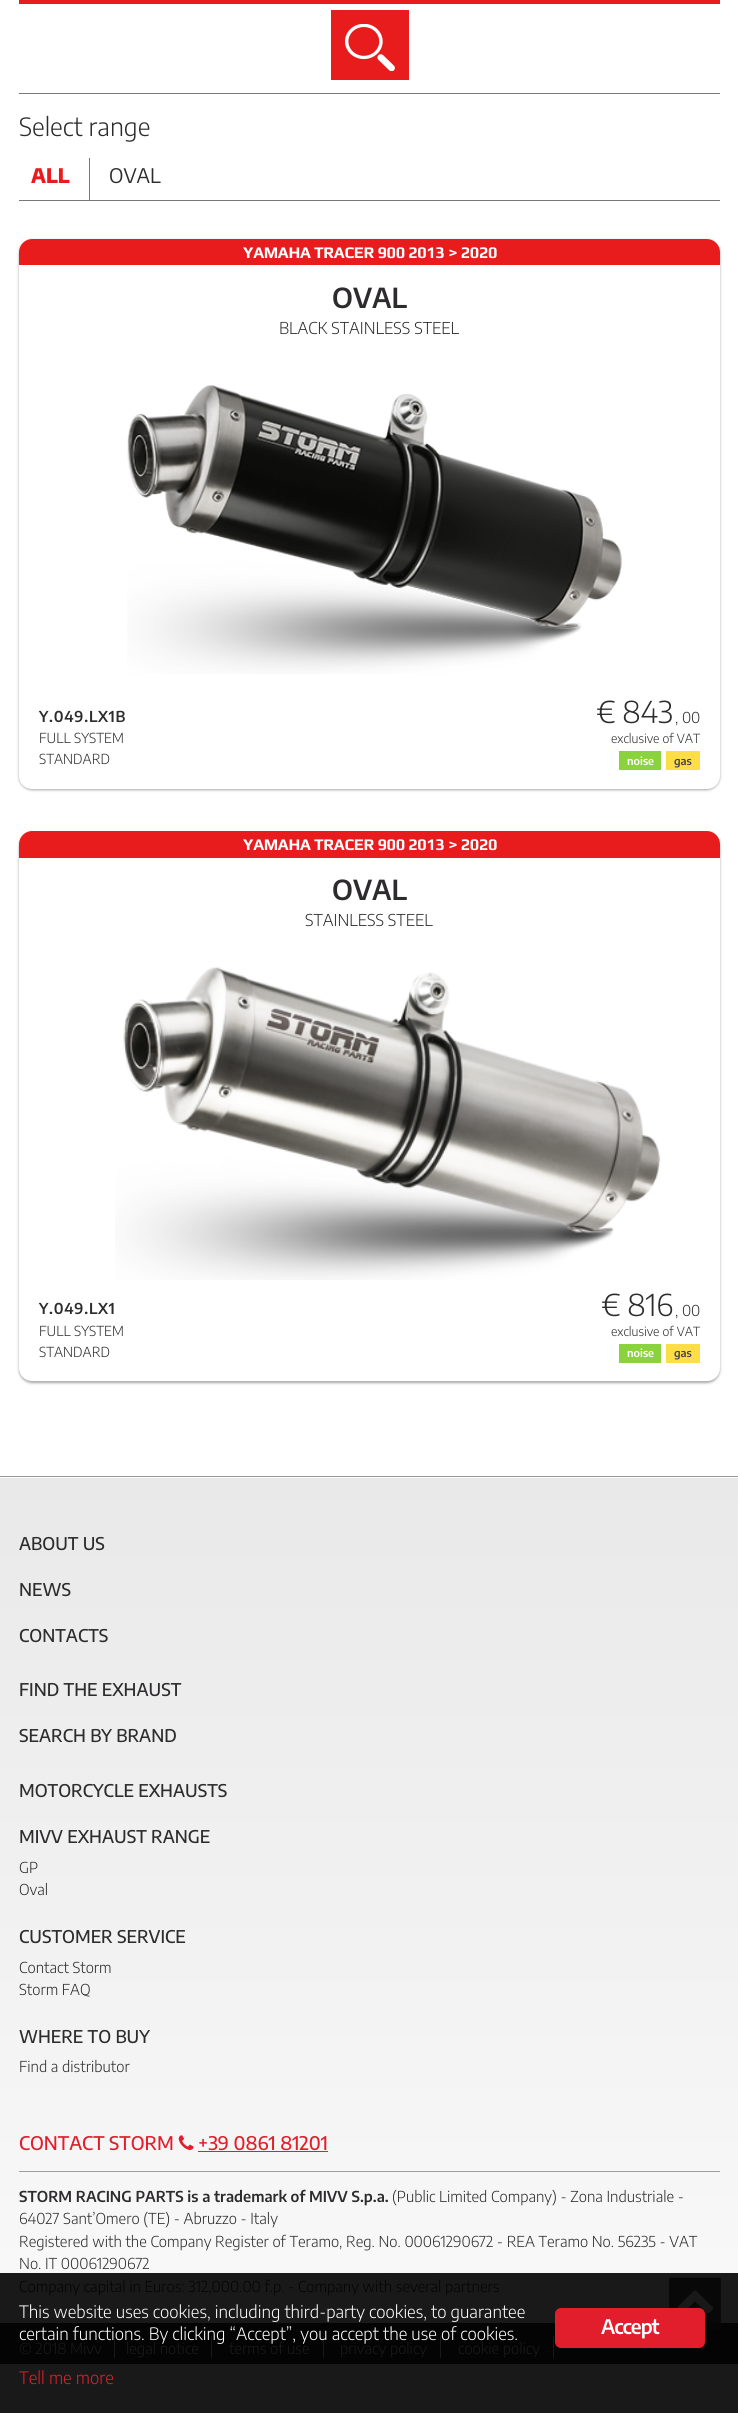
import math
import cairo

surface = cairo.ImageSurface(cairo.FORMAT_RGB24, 738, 2413)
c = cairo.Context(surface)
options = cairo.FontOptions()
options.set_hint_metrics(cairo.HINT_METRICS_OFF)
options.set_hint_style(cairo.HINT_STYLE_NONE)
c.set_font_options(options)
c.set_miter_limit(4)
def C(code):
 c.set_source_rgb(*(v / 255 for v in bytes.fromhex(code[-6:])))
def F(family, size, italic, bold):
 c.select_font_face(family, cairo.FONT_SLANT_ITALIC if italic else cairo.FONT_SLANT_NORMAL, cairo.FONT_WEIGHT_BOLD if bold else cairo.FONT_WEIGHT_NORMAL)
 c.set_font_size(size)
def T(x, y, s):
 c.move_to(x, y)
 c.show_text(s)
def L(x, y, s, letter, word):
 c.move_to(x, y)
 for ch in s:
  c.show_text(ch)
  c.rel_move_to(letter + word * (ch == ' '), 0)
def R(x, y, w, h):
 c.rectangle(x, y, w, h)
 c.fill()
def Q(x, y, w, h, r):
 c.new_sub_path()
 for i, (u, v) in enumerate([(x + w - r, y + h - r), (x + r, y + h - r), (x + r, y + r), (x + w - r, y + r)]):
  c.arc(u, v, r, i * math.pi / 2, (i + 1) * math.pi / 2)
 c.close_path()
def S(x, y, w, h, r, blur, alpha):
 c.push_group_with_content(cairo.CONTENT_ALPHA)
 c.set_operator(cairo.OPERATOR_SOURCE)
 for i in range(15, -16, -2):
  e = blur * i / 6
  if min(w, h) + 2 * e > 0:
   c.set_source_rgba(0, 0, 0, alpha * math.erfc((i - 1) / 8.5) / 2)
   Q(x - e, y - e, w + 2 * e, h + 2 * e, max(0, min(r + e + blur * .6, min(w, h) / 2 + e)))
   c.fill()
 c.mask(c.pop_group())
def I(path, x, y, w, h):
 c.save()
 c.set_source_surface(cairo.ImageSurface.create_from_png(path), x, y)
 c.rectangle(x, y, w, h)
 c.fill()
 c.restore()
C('ffffff')
c.paint()
C('191919')
R(0,2364,738,49)
C('777777')
R(19,93,701,1)
C('e81c1c')
R(19,0,701,4)
R(331,10,78,70)
I('1.png',345,24,50,47)
C('777777')
R(19,200,701,1)
F('Encode Sans Light',25,0,0)
C('2d2b2d')
T(19,136,'Select range')
F('Encode Sans ExtraBold',20,0,0)
C('e81c1c')
T(31,183,'ALL')
C('777777')
R(89,158,1,42)
F('Encode Sans',20,0,0)
C('2d2b2d')
T(109,183,'OVAL')
C('000000')
S(19,240,701,550,13,1,.24)
S(19,240,701,550,13,2,.12)
C('ffffff')
Q(19,239,701,550,13)
c.fill()
C('e81c1c')
c.new_path()
c.move_to(32,239)
c.line_to(707,239)
c.curve_to(714,239,720,245,720,252)
c.line_to(720,265)
c.line_to(19,265)
c.line_to(19,252)
c.curve_to(19,245,25,239,32,239)
c.close_path()
c.fill()
F('Play',16.25,0,1)
C('ffffff')
L(243,258,'YAMAHA TRACER 900 2013 > 2020',-.3,0)
F('Encode Sans SemiBold',27.5,0,0)
C('2d2b2d')
T(332,308,'OVAL')
F('Encode Sans Light',16.25,0,0)
T(279,334,'BLACK STAINLESS STEEL')
I('2.png',127,385,495,289)
F('Encode Sans SemiBold',15,0,0)
L(39,722,'Y.049.LX1B',.75,0)
F('Encode Sans Light',13.75,0,0)
T(39,743,'FULL SYSTEM')
T(39,764,'STANDARD')
F('Encode Sans Light',30,0,0)
T(596,723,'€ 843')
F('Encode Sans Light',15,0,0)
T(675,723,', 00')
F('Encode Sans Light',12.5,0,0)
T(611,743,'exclusive of VAT')
C('8bd23f')
R(619,751,42,19)
F('Encode Sans SemiBold',11,0,0)
C('ffffff')
T(627,765,'noise')
C('fede47')
R(666,751,34,19)
C('464346')
T(674,765,'gas')
C('000000')
S(19,833,701,550,13,1,.24)
S(19,833,701,550,13,2,.12)
C('ffffff')
Q(19,831,701,550,13)
c.fill()
C('e81c1c')
c.new_path()
c.move_to(32,831)
c.line_to(707,831)
c.curve_to(714,831,720,837,720,844)
c.line_to(720,858)
c.line_to(19,858)
c.line_to(19,844)
c.curve_to(19,837,25,831,32,831)
c.close_path()
c.fill()
F('Play',16.25,0,1)
C('ffffff')
L(243,850,'YAMAHA TRACER 900 2013 > 2020',-.3,0)
F('Encode Sans SemiBold',27.5,0,0)
C('2d2b2d')
T(332,900,'OVAL')
F('Encode Sans Light',16.25,0,0)
T(305,926,'STAINLESS STEEL')
I('3.png',115,967,546,313)
F('Encode Sans SemiBold',15,0,0)
L(39,1314,'Y.049.LX1',.75,0)
F('Encode Sans Light',13.75,0,0)
T(39,1336,'FULL SYSTEM')
T(39,1357,'STANDARD')
F('Encode Sans Light',30,0,0)
T(601,1316,'€ 816')
F('Encode Sans Light',15,0,0)
T(675,1316,', 00')
F('Encode Sans Light',12.5,0,0)
T(611,1336,'exclusive of VAT')
C('8bd23f')
R(619,1344,42,19)
F('Encode Sans SemiBold',11,0,0)
C('ffffff')
T(627,1357,'noise')
C('fede47')
R(666,1344,34,19)
C('464346')
T(674,1357,'gas')
gradient = cairo.LinearGradient(369,632,369,1478)
gradient.add_color_stop_rgba(0,0.914,0.914,0.914,1)
gradient.add_color_stop_rgba(1,0.976,0.976,0.976,1)
c.set_source(gradient)
R(0,1477,738,1)
gradient = cairo.LinearGradient(369,1478,369,2323)
gradient.add_color_stop_rgba(0,0.914,0.914,0.914,1)
gradient.add_color_stop_rgba(1,0.976,0.976,0.976,1)
c.set_source(gradient)
R(0,1478,738,795)
gradient = cairo.LinearGradient(369,1478,369,2323)
gradient.add_color_stop_rgba(0,0.09,0.09,0.09,1)
gradient.add_color_stop_rgba(1,0.098,0.098,0.098,1)
c.set_source(gradient)
R(0,2273,738,50)
C('9b9b9b')
R(0,1476,738,1)
F('Encode Sans Medium',17.5,0,0)
C('2d2b2d')
T(19,1550,'ABOUT US')
T(19,1596,'NEWS')
T(19,1642,'CONTACTS')
T(19,1696,'FIND THE EXHAUST')
T(19,1742,'SEARCH BY BRAND')
T(19,1797,'MOTORCYCLE EXHAUSTS')
T(19,1843,'MIVV EXHAUST RANGE')
F('Encode Sans Light',15,0,0)
T(19,1873,'GP')
T(19,1895,'Oval')
F('Encode Sans Medium',17.5,0,0)
T(19,1943,'CUSTOMER SERVICE')
F('Encode Sans Light',15,0,0)
T(19,1973,'Contact Storm')
T(19,1995,'Storm FAQ')
F('Encode Sans Medium',17.5,0,0)
T(19,2043,'WHERE TO BUY')
F('Encode Sans Light',15,0,0)
T(19,2072,'Find a distributor')
F('Encode Sans Medium',18.75,0,0)
C('e21d2c')
T(19,2150,'CONTACT STORM')
I('4.png',178,2135,16,15)
T(198,2150,'+39 0861 81201')
R(198,2151,130,1)
C('9e9fa1')
R(19,2171,701,1)
F('Encode Sans SemiBold',15,0,0)
C('2d2b2d')
T(19,2202,'STORM RACING PARTS is a trademark of MIVV S.p.a.')
F('Encode Sans Light',15,0,0)
T(392,2202,'(Public Limited Company) - Zona Industriale -')
T(19,2224,'64027 Sant’Omero (TE) - Abruzzo - Italy')
T(19,2247,'Registered with the Company Register of Teramo, Reg. No. 00061290672 - REA Teramo No. 56235 - VAT')
T(19,2269,'No. IT 00061290672')
C('040404')
T(19,2292,'Company capital in Euros: 312,000.00 f.p. - Company with several partners')
R(0,2323,738,41)
C('191919')
T(19,2354,'© 2018 Mivv')
R(114,2339,1,19)
T(126,2354,'legal notice')
R(211,2336,1,22)
T(229,2354,'terms of use')
R(323,2336,1,22)
T(340,2354,'privacy policy')
R(440,2336,1,22)
T(458,2354,'cookie policy')
R(553,2336,1,22)
F('Encode Sans Light',17,0,0)
C('ffffff')
T(19,2318,'This website uses cookies, including third-party cookies, to guarantee')
T(19,2340,'certain functions. By clicking “Accept”, you accept the use of cookies.')
C('e21d2c')
T(19,2384,'Tell me more')
I('5.png',669,2277,52,53)
Q(555,2308,150,40,6)
c.fill()
F('Encode Sans SemiBold',20,0,0)
C('ffffff')
L(601,2334,'Accept',-1,0)
surface.write_to_png('o.png')
